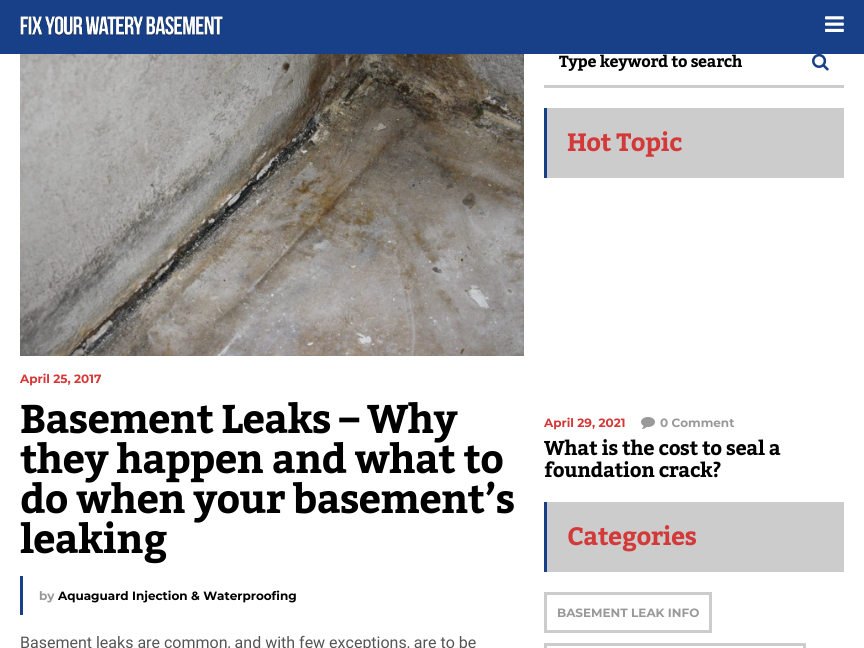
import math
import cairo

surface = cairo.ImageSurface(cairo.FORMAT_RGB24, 864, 648)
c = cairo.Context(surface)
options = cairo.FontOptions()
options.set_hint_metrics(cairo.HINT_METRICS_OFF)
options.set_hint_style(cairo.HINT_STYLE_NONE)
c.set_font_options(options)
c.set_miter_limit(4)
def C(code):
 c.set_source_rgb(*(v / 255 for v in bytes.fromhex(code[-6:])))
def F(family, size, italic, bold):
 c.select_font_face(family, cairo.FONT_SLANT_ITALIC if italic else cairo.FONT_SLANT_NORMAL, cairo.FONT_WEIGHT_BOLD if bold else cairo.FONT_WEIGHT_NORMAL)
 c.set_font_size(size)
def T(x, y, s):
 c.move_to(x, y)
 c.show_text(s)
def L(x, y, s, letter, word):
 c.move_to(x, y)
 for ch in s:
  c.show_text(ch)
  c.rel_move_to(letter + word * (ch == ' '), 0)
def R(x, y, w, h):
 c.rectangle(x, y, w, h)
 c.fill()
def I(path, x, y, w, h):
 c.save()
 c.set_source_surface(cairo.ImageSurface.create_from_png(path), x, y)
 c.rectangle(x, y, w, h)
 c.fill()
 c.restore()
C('ffffff')
c.paint()
C('184089')
R(0,0,864,54)
I('1.png',20,15,203,21)
I('2.png',825,16,19,16)
I('3.png',20,54,504,302)
F('Montserrat',12,0,1)
C('d43939')
T(20,383,'April 25, 2017')
F('Kadwa',40,0,1)
C('000000')
L(20,433,'Basement Leaks – Why',-.8,0)
L(20,473,'they happen and what to',-.8,0)
L(20,513,'do when your basement’s',-.8,0)
L(20,553,'leaking',-.8,0)
C('184089')
R(20,576,3,39)
F('Montserrat',12,0,1)
C('999999')
T(39,600,'by')
C('000000')
T(58,600,'Aquaguard Injection & Waterproofing')
F('Roboto',16,0,0)
C('555555')
T(20,648,'Basement leaks are common, and with few exceptions, are to be')
C('cccccc')
R(544,85,300,3)
F('Kadwa',16,0,1)
C('000000')
L(559,67,'Type keyword to search',-.3,0)
I('4.png',812,54,17,17)
C('cccccc')
R(547,108,297,70)
C('184089')
R(544,108,3,70)
F('Kadwa',25,0,1)
C('d43939')
L(567,151,'Hot Topic',-.5,0)
F('Montserrat',12,0,1)
T(544,427,'April 29, 2021')
I('5.png',641,417,14,12)
C('999999')
T(660,427,'0 Comment')
F('Kadwa',20,0,1)
C('000000')
L(544,455,'What is the cost to seal a',-.4,0)
L(544,477,'foundation crack?',-.4,0)
C('cccccc')
R(547,502,297,70)
C('184089')
R(544,502,3,70)
F('Kadwa',25,0,1)
C('d43939')
L(567,545,'Categories',-.5,0)
c.rectangle(545.5,593.5,165,38)
C('cccccc')
c.set_line_width(3)
c.stroke()
F('Montserrat',12,0,1)
C('999999')
T(557,617,'BASEMENT LEAK INFO')
c.rectangle(545.5,644.5,259,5)
C('cccccc')
c.stroke()
surface.write_to_png('o.png')
